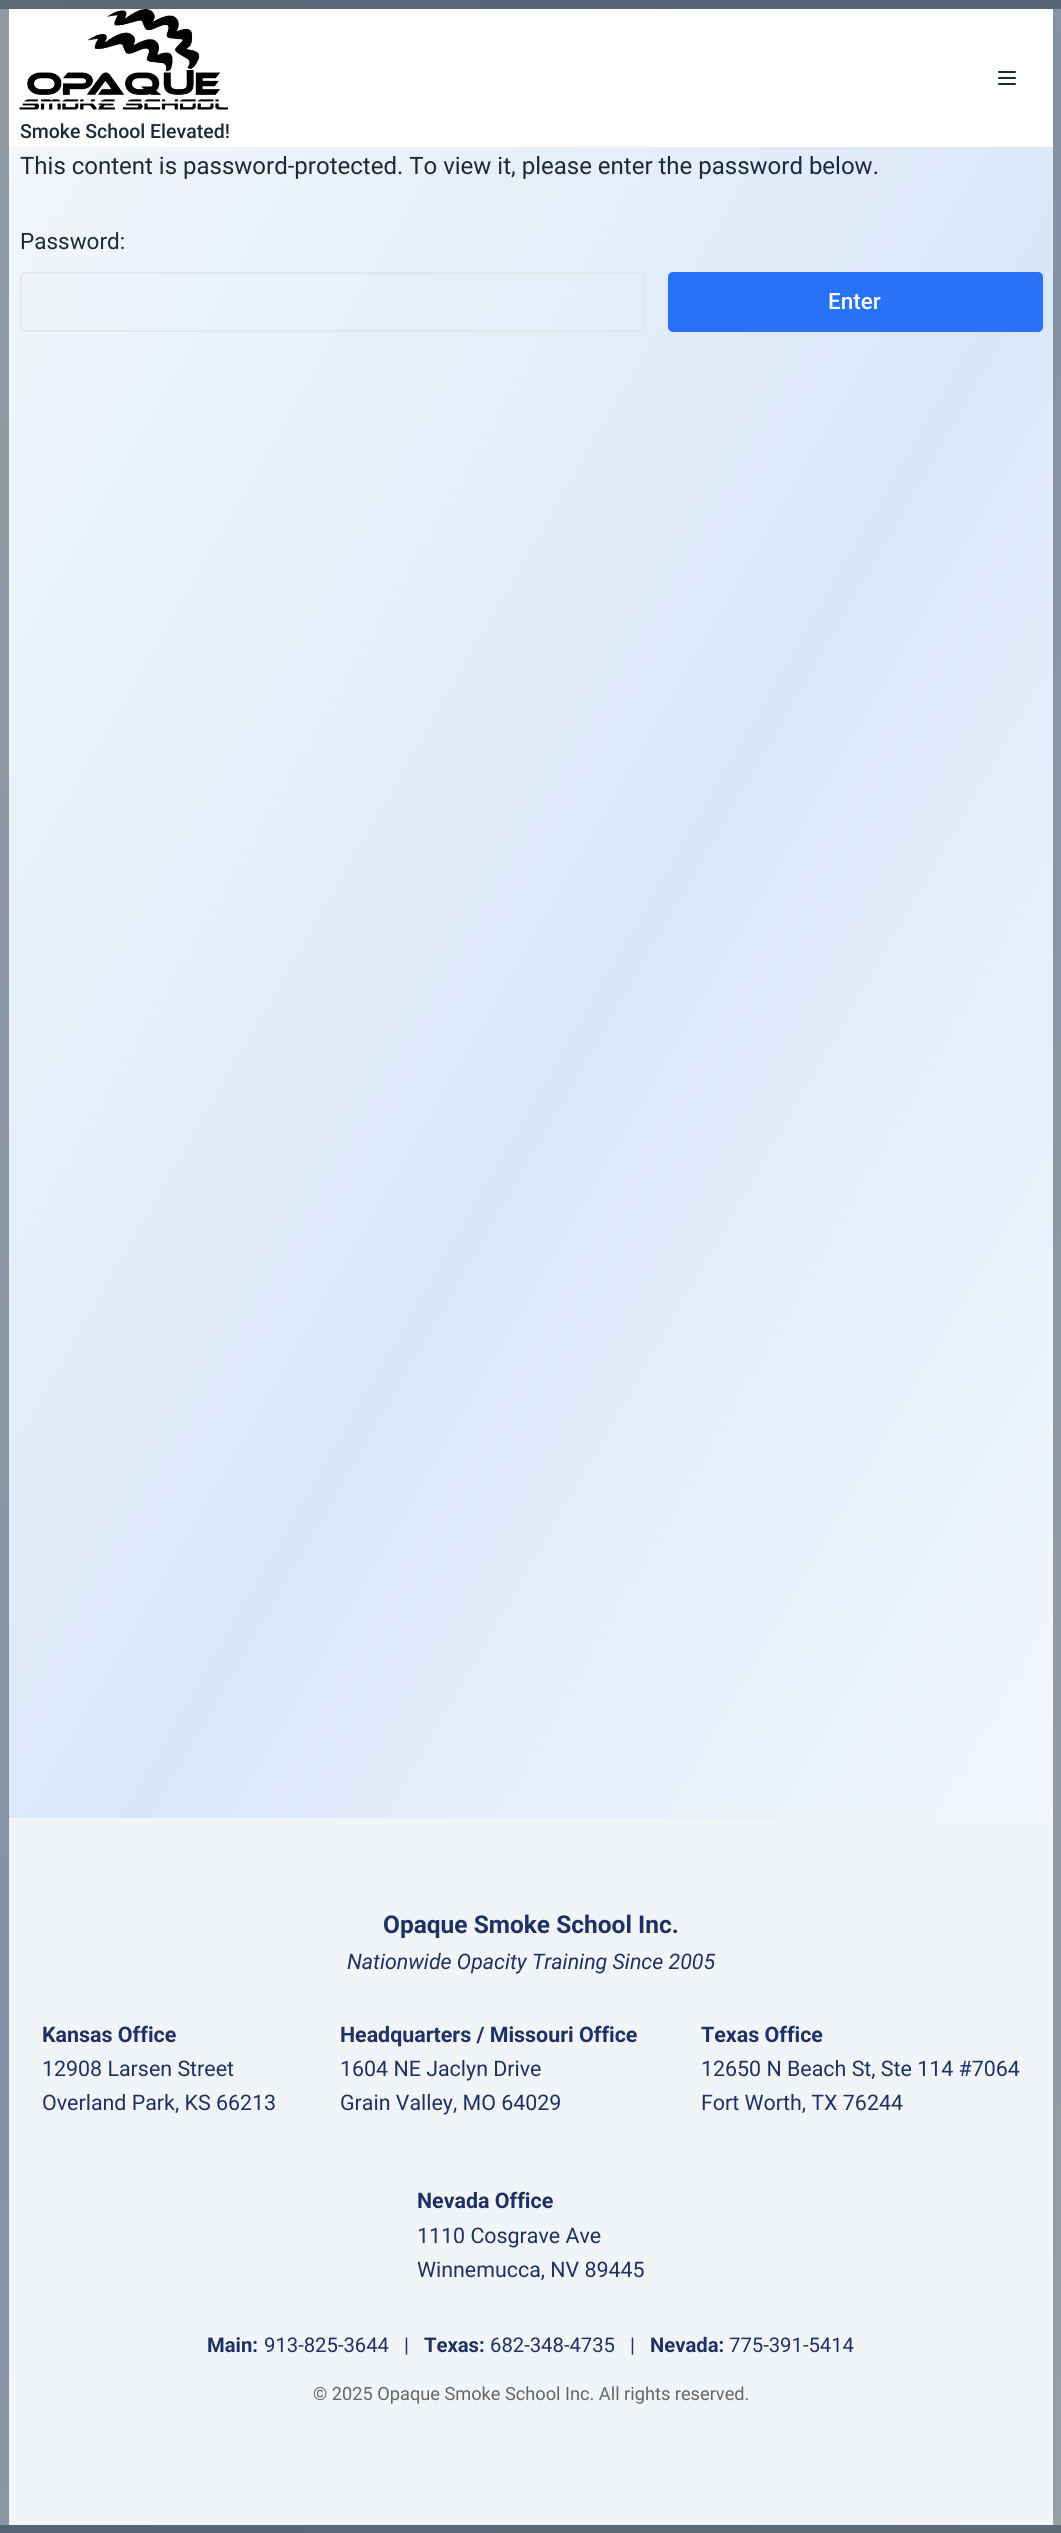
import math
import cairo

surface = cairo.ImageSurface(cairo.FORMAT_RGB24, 1061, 2533)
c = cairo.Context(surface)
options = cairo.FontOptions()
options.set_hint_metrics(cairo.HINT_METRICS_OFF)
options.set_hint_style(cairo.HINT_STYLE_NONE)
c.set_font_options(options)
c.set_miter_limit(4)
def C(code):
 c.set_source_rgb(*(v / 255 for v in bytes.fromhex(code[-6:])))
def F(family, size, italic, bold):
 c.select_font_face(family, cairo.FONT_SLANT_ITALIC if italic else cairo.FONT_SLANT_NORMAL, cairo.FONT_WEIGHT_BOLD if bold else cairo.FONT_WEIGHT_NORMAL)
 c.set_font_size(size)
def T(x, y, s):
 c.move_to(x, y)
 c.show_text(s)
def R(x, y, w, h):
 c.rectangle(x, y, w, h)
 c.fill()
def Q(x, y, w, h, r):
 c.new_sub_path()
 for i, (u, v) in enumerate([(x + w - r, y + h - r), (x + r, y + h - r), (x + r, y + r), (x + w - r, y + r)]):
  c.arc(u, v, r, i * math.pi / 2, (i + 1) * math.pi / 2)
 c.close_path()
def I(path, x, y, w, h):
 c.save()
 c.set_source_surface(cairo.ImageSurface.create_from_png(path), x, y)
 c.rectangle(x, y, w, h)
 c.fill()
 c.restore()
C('ffffff')
c.paint()
gradient = cairo.LinearGradient(-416,720,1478,1813)
gradient.add_color_stop_rgba(0,0.961,0.973,0.98,1)
gradient.add_color_stop_rgba(.47,0.859,0.906,0.976,1)
gradient.add_color_stop_rgba(1,1,1,1,1)
c.set_source(gradient)
R(0,0,1061,2533)
c.rectangle(4.5,4.5,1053,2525)
c.set_source_rgba(0.098,0.165,0.239,0.45)
c.set_line_width(9)
c.stroke()
R(0,0,1061,9)
C('ffffff')
R(9,9,1044,138)
C('192a3d')
Q(998,71,18,2,1)
c.fill()
Q(998,77,18,2,1)
c.fill()
Q(998,83,18,2,1)
c.fill()
I('1.png',19,9,209,101)
F('Roboto Medium',19.5,0,0)
T(20,138,'Smoke School Elevated!')
F('Roboto',24,0,0)
T(20,174,'This content is password-protected. To view it, please enter the password below.')
F('Roboto',22.5,0,0)
T(20,249,'Password:')
Q(21,273,623,58,4)
C('e1e8ed')
c.set_line_width(2)
c.stroke()
C('2872fa')
Q(668,272,375,60,5)
c.fill()
F('Roboto Medium',22.5,0,0)
C('ffffff')
T(828,309,'Enter')
C('f2f5f7')
R(9,1818,1044,707)
F('Roboto',24.5,0,1)
C('1e3167')
T(383,1933,'Opaque Smoke School Inc.')
F('Roboto',21.4,1,0)
T(347,1969,'Nationwide Opacity Training Since 2005')
F('Roboto',21.4,0,1)
T(42,2042,'Kansas Office')
F('Roboto',21.4,0,0)
T(42,2076,'12908 Larsen Street')
T(42,2110,'Overland Park, KS 66213')
F('Roboto',21.4,0,1)
T(340,2042,'Headquarters / Missouri Office')
F('Roboto',21.4,0,0)
T(340,2076,'1604 NE Jaclyn Drive')
T(340,2110,'Grain Valley, MO 64029')
F('Roboto',21.4,0,1)
T(701,2042,'Texas Office')
F('Roboto',21.4,0,0)
T(701,2076,'12650 N Beach St, Ste 114 #7064')
T(701,2110,'Fort Worth, TX 76244')
F('Roboto',21.4,0,1)
T(417,2208,'Nevada Office')
F('Roboto',21.4,0,0)
T(417,2243,'1110 Cosgrave Ave')
T(417,2277,'Winnemucca, NV 89445')
F('Roboto',20.25,0,1)
T(207,2352,'Main:')
F('Roboto',20.25,0,0)
T(264,2352,'913-825-3644   |')
F('Roboto',20.25,0,1)
T(424,2352,'Texas:')
F('Roboto',20.25,0,0)
T(490,2352,'682-348-4735   |')
F('Roboto',20.25,0,1)
T(650,2352,'Nevada:')
F('Roboto',20.25,0,0)
T(729,2352,'775-391-5414')
F('Roboto',18.2,0,0)
C('666666')
T(313,2400,'© 2025 Opaque Smoke School Inc. All rights reserved.')
c.set_source_rgba(0.098,0.165,0.239,0.45)
R(0,2525,1061,8)
surface.write_to_png('o.png')
